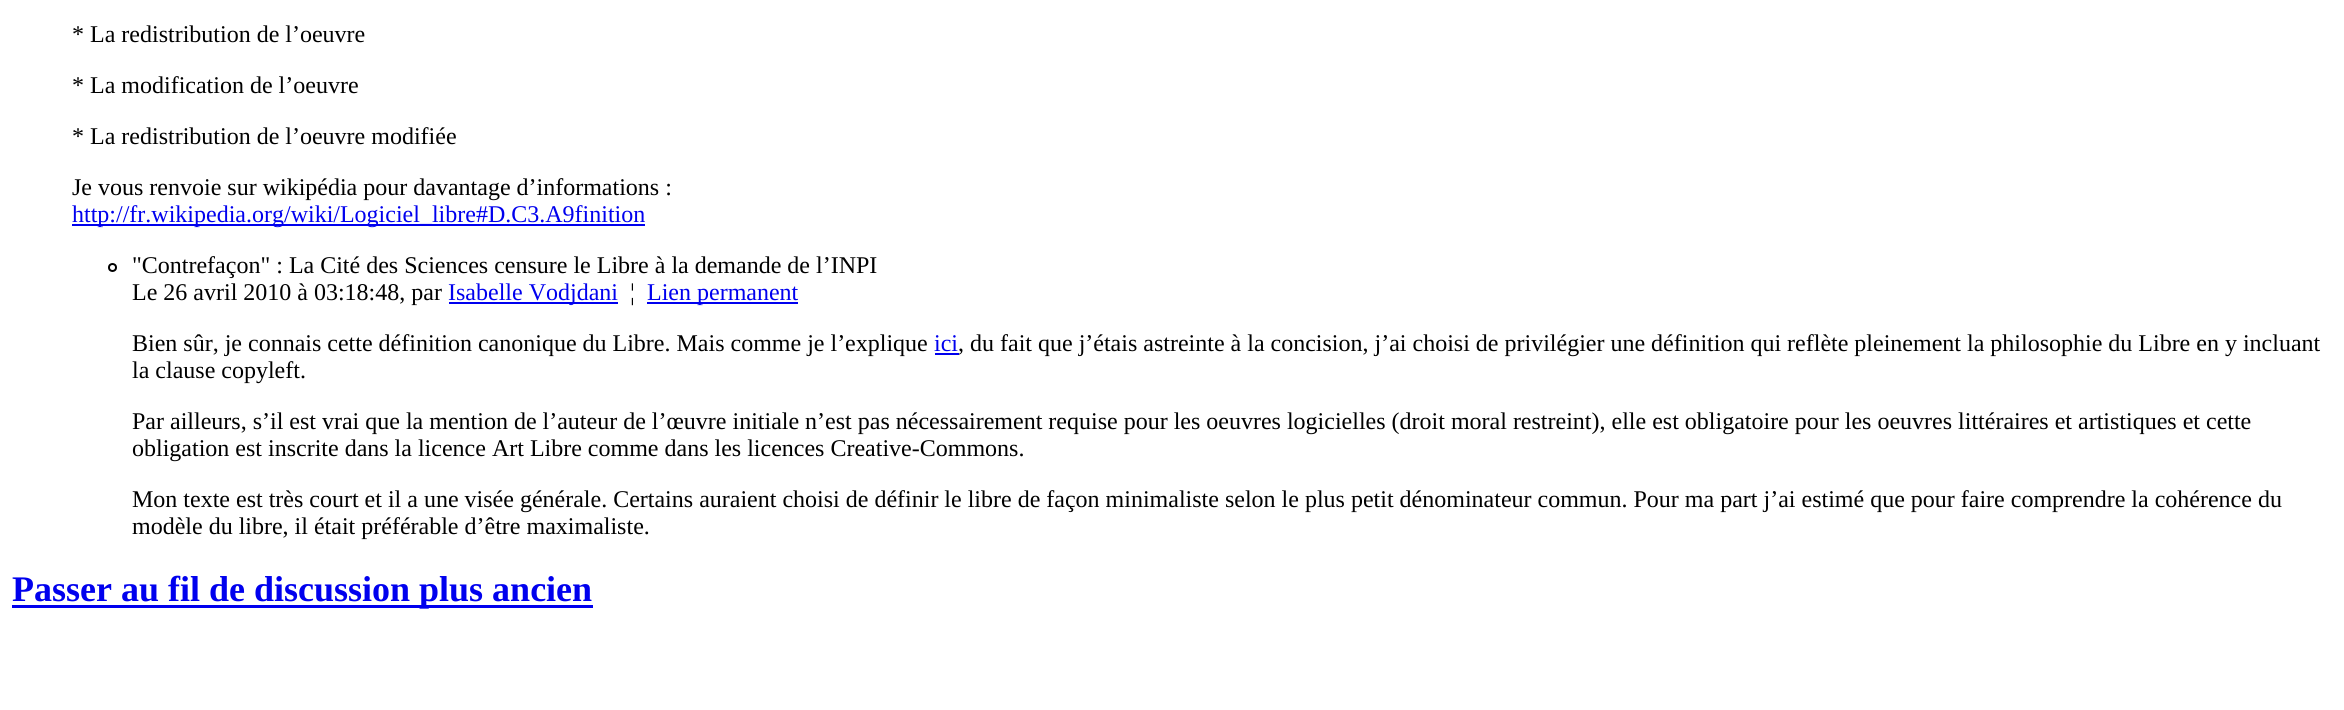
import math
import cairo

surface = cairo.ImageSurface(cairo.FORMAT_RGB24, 2344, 710)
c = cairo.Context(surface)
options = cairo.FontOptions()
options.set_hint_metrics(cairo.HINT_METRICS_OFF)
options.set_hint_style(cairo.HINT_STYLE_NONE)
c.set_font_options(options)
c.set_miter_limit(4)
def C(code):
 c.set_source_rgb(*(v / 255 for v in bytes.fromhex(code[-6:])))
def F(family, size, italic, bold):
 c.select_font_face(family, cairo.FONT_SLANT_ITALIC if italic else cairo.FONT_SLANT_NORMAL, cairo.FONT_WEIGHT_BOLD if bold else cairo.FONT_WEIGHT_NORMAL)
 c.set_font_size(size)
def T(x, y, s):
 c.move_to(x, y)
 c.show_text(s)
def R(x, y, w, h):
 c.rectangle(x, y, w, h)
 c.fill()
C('ffffff')
c.paint()
F('Liberation Serif',24,0,0)
C('000000')
T(72,42,'* La redistribution de l’oeuvre')
T(72,93,'* La modification de l’oeuvre')
T(72,144,'* La redistribution de l’oeuvre modifiée')
T(72,195,'Je vous renvoie sur wikipédia pour davantage d’informations :')
C('0000ee')
R(72,224,573,2)
T(72,222,'http://fr.wikipedia.org/wiki/Logiciel_libre#D.C3.A9finition')
c.new_path()
c.arc(112.5,267.5,3.5,0,2 * math.pi)
C('000000')
c.stroke()
T(132,273,'"Contrefaçon" : La Cité des Sciences censure le Libre à la demande de l’INPI')
T(132,300,'Le 26 avril 2010 à 03:18:48, par')
C('0000ee')
R(449,302,169,2)
T(448,300,'Isabelle Vodjdani')
C('000000')
T(630,300,'¦')
C('0000ee')
R(647,302,151,2)
T(647,300,'Lien permanent')
C('000000')
T(132,351,'Bien sûr, je connais cette définition canonique du Libre. Mais comme je l’explique')
C('0000ee')
T(934,351,'ici')
R(935,353,24,2)
C('000000')
T(958,351,', du fait que j’étais astreinte à la concision, j’ai choisi de privilégier une définition qui reflète pleinement la philosophie du Libre en y incluant')
T(132,378,'la clause copyleft.')
T(132,429,'Par ailleurs, s’il est vrai que la mention de l’auteur de l’œuvre initiale n’est pas nécessairement requise pour les oeuvres logicielles (droit moral restreint), elle est obligatoire pour les oeuvres littéraires et artistiques et cette')
T(132,456,'obligation est inscrite dans la licence Art Libre comme dans les licences Creative-Commons.')
T(132,507,'Mon texte est très court et il a une visée générale. Certains auraient choisi de définir le libre de façon minimaliste selon le plus petit dénominateur commun. Pour ma part j’ai estimé que pour faire comprendre la cohérence du')
T(132,534,'modèle du libre, il était préférable d’être maximaliste.')
C('0000ee')
R(12,605,581,3)
F('Liberation Serif',36,0,1)
T(12,601,'Passer au fil de discussion plus ancien')
surface.write_to_png('o.png')
